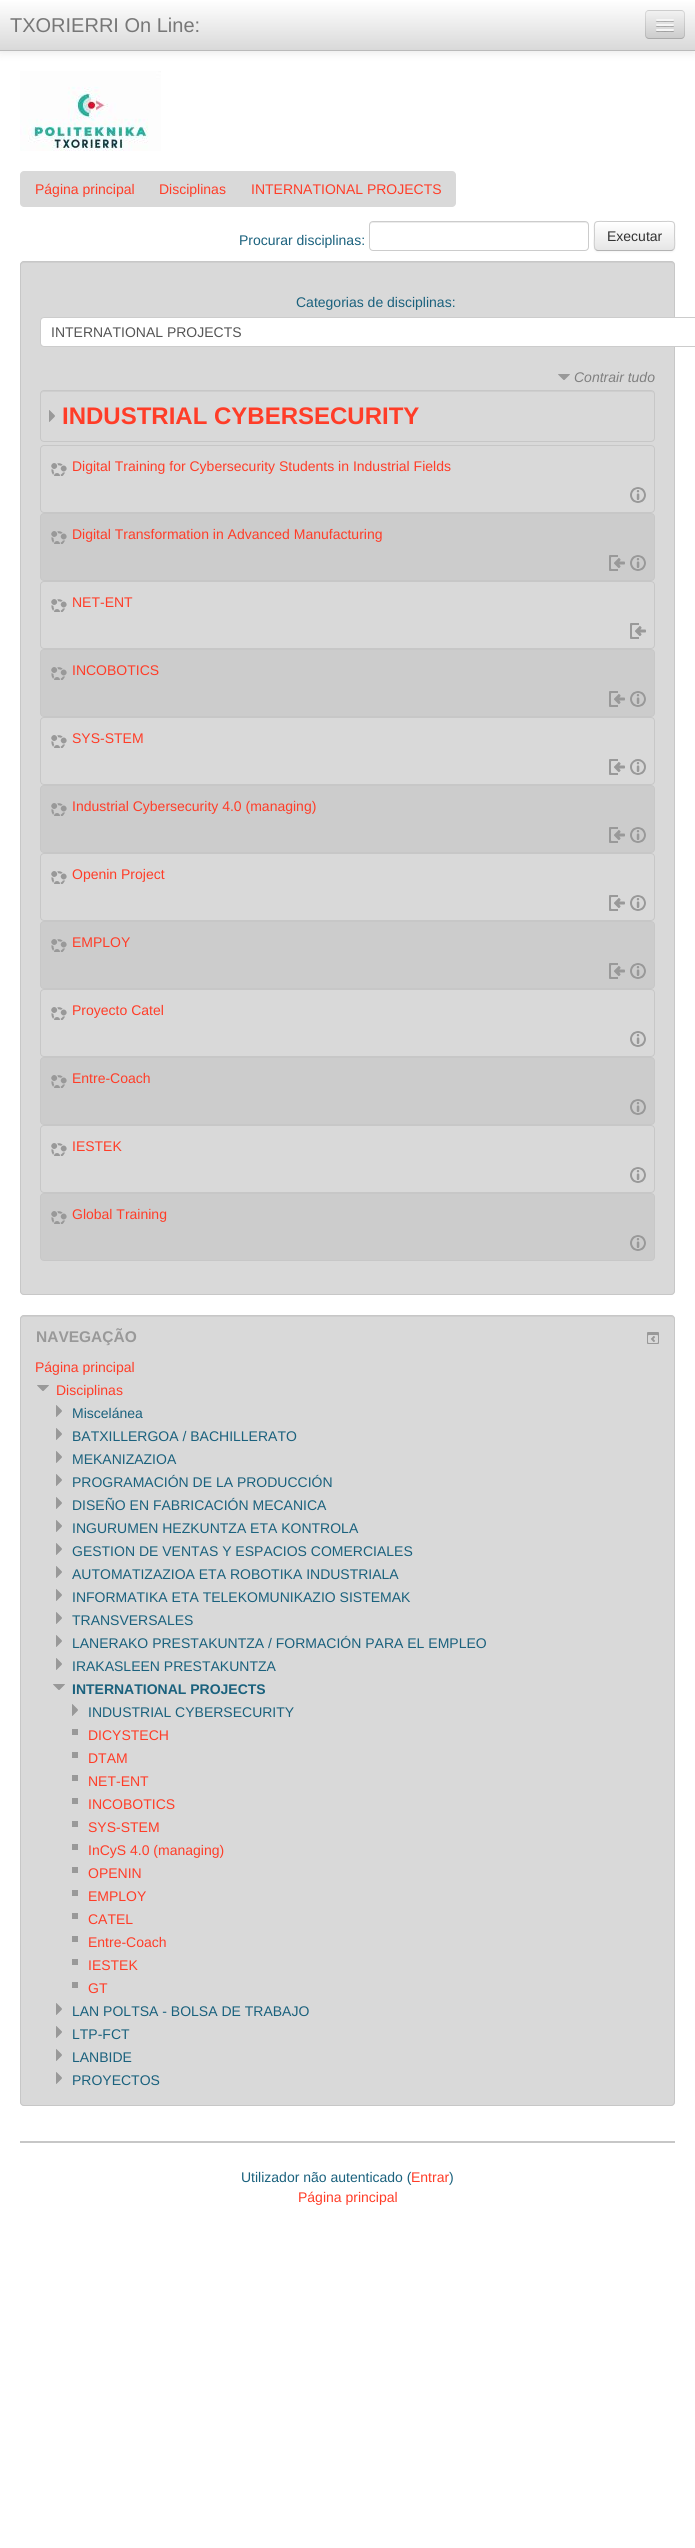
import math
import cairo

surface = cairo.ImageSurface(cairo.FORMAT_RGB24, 695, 2548)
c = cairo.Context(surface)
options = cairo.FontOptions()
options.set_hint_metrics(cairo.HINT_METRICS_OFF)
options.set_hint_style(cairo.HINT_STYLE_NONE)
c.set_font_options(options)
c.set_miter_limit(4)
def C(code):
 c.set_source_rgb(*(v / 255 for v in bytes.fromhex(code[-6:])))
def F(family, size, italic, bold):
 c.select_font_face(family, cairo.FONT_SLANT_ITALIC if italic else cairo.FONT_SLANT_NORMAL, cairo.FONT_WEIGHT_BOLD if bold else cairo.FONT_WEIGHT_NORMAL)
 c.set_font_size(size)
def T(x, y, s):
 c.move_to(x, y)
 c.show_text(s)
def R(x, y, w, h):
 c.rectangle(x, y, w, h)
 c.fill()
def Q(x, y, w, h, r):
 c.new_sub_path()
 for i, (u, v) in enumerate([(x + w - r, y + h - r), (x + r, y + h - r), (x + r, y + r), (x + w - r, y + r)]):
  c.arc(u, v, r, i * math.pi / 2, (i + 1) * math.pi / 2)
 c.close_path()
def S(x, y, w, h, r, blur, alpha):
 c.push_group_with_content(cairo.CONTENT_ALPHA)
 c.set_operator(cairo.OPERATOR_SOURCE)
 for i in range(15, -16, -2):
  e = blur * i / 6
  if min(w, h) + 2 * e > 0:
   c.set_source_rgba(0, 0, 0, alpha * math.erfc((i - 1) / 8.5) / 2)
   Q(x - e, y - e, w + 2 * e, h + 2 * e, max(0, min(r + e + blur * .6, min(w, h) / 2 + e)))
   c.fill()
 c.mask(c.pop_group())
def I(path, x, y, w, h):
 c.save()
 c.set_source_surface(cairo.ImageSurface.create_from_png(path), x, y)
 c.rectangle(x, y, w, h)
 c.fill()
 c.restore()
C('ffffff')
c.paint()
C('000000')
S(0,1,695,51,0,5,.1)
gradient = cairo.LinearGradient(348,0,348,50)
gradient.add_color_stop_rgba(0,1,1,1,1)
gradient.add_color_stop_rgba(1,0.851,0.851,0.851,1)
c.set_source(gradient)
R(0,0,695,50)
C('bababa')
R(0,50,695,1)
F('Liberation Sans',20,0,0)
C('777777')
T(10,32,'TXORIERRI On Line:')
C('e3e3e3')
Q(645,10,40,29,4)
c.fill()
c.save()
Q(645,10,40,29,4)
c.clip()
gradient = cairo.LinearGradient(665,11,665,38)
gradient.add_color_stop_rgba(0,0.949,0.949,0.949,1)
gradient.add_color_stop_rgba(1,0.8,0.8,0.8,1)
c.set_source(gradient)
R(645,11,40,27)
c.restore()
c.new_path()
c.move_to(683.5,37.5)
c.curve_to(683,38,682,38.5,681,38.5)
c.line_to(649,38.5)
c.curve_to(648,38.5,647,38,646.5,37.5)
C('aaaaaa')
c.set_line_width(1)
c.stroke()
c.new_path()
c.move_to(646.5,37.5)
c.curve_to(646,37,645.5,36,645.5,35)
c.line_to(645.5,14)
c.curve_to(645.5,13,646,12,646.5,11.5)
c.curve_to(647,11,648,10.5,649,10.5)
c.line_to(681,10.5)
c.curve_to(682,10.5,683,11,683.5,11.5)
c.curve_to(684,12,684.5,13,684.5,14)
c.line_to(684.5,35)
c.curve_to(684.5,36,684,37,683.5,37.5)
c.set_source_rgba(0,0,0,0.1)
c.stroke()
C('aaaaaa')
c.new_path()
c.move_to(656,20.5)
c.curve_to(655,22.5,659.5,22,659.5,22)
c.line_to(670.5,22)
c.curve_to(670.5,22,675,22.5,674,20.5)
c.curve_to(673,21.5,666.5,21,665,21)
c.curve_to(663.5,21,657,21.5,656,20.5)
c.close_path()
c.fill()
C('f5f5f5')
Q(656,19,18,2,1)
c.fill()
C('a5a5a5')
c.new_path()
c.move_to(656,25.5)
c.curve_to(655,27.5,659.5,27,659.5,27)
c.line_to(670.5,27)
c.curve_to(670.5,27,675,27.5,674,25.5)
c.curve_to(673,26.5,666.5,26,665,26)
c.curve_to(663.5,26,657,26.5,656,25.5)
c.close_path()
c.fill()
C('f5f5f5')
Q(656,24,18,2,1)
c.fill()
C('a0a0a0')
c.new_path()
c.move_to(656,30.5)
c.curve_to(655,32.5,659.5,32,659.5,32)
c.line_to(670.5,32)
c.curve_to(670.5,32,675,32.5,674,30.5)
c.curve_to(673,31.5,666.5,31,665,31)
c.curve_to(663.5,31,657,31.5,656,30.5)
c.close_path()
c.fill()
C('f5f5f5')
Q(656,29,18,2,1)
c.fill()
I('1.png',20,71,141,80)
C('d9d9d9')
Q(20,171,436,36,4)
c.fill()
F('Liberation Sans',14,0,0)
C('ff3d28')
T(35,194,'Página principal')
T(159,194,'Disciplinas')
T(251,194,'INTERNATIONAL PROJECTS')
C('1a617d')
T(239,245,'Procurar disciplinas:')
C('ececec')
c.new_path()
c.move_to(373,223)
c.line_to(585,223)
c.curve_to(587,223,588,224,588,226)
c.line_to(588,225)
c.curve_to(588,223,587,222,585,222)
c.line_to(373,222)
c.curve_to(371,222,370,223,370,225)
c.line_to(370,226)
c.curve_to(370,224,371,223,373,223)
c.close_path()
c.fill()
Q(369.5,221.5,219,29,3.5)
C('cccccc')
c.stroke()
C('000000')
S(594,222,81,30,4,1,.05)
c.save()
Q(594,221,81,30,4)
c.clip()
gradient = cairo.LinearGradient(635,222,635,250)
gradient.add_color_stop_rgba(0,1,1,1,1)
gradient.add_color_stop_rgba(1,0.902,0.902,0.902,1)
c.set_source(gradient)
R(594,222,81,28)
c.restore()
c.new_path()
c.move_to(673.5,249.5)
c.curve_to(673,250,672,250.5,671,250.5)
c.line_to(598,250.5)
c.curve_to(597,250.5,596,250,595.5,249.5)
C('b3b3b3')
c.stroke()
c.new_path()
c.move_to(595.5,249.5)
c.curve_to(593.5,247.5,594.5,239,594.5,236)
c.curve_to(594.5,219,592,221.5,610,221.5)
c.line_to(659,221.5)
c.curve_to(677,221.5,674.5,219,674.5,236)
c.curve_to(674.5,239,675.5,247.5,673.5,249.5)
C('cccccc')
c.stroke()
C('333333')
T(607,241,'Executar')
C('d9d9d9')
Q(20,261,655,1034,4)
c.fill()
C('cecece')
c.new_path()
c.move_to(24,263)
c.line_to(671,263)
c.curve_to(673,263,674,264,674,266)
c.line_to(674,265)
c.curve_to(674,263,673,262,671,262)
c.line_to(24,262)
c.curve_to(22,262,21,263,21,265)
c.line_to(21,266)
c.curve_to(21,264,22,263,24,263)
c.close_path()
c.fill()
Q(20.5,261.5,654,1033,3.5)
C('c7c7c7')
c.stroke()
C('1a617d')
T(296,307,'Categorias de disciplinas:')
C('ffffff')
Q(40.5,317.5,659,29,3.5)
c.fill_preserve()
C('cccccc')
c.stroke()
C('555555')
T(51,337,'INTERNATIONAL PROJECTS')
I('2.png',558,374,12,6)
F('Liberation Sans',14,1,0)
C('808080')
T(574,382,'Contrair tudo')
C('cecece')
c.new_path()
c.move_to(44,392)
c.line_to(651,392)
c.curve_to(653,392,654,393,654,395)
c.line_to(654,394)
c.curve_to(654,392,653,391,651,391)
c.line_to(44,391)
c.curve_to(42,391,41,392,41,394)
c.line_to(41,395)
c.curve_to(41,393,42,392,44,392)
c.close_path()
c.fill()
Q(40.5,390.5,614,51,3.5)
C('c7c7c7')
c.stroke()
I('3.png',49,410,6,12)
F('Liberation Sans',24,0,1)
C('ff3d28')
T(62,424,'INDUSTRIAL CYBERSECURITY')
Q(40.5,445.5,614,67,3.5)
C('c7c7c7')
c.stroke()
I('4.png',51,463,16,13)
F('Liberation Sans',14,0,0)
C('ff3d28')
T(72,471,'Digital Training for Cybersecurity Students in Industrial Fields')
I('5.png',630,487,16,16)
C('cccccc')
Q(40.5,513.5,614,67,3.5)
c.fill_preserve()
C('c7c7c7')
c.stroke()
I('6.png',51,531,16,13)
C('ff3d28')
T(72,539,'Digital Transformation in Advanced Manufacturing')
I('7.png',609,555,16,16)
I('8.png',630,555,16,16)
Q(40.5,581.5,614,67,3.5)
C('c7c7c7')
c.stroke()
I('4.png',51,599,16,13)
C('ff3d28')
T(72,607,'NET-ENT')
I('9.png',630,623,16,16)
C('cccccc')
Q(40.5,649.5,614,67,3.5)
c.fill_preserve()
C('c7c7c7')
c.stroke()
I('6.png',51,667,16,13)
C('ff3d28')
T(72,675,'INCOBOTICS')
I('7.png',609,691,16,16)
I('8.png',630,691,16,16)
Q(40.5,717.5,614,67,3.5)
C('c7c7c7')
c.stroke()
I('4.png',51,735,16,13)
C('ff3d28')
T(72,743,'SYS-STEM')
I('10.png',609,759,16,16)
I('11.png',630,759,16,16)
C('cccccc')
Q(40.5,785.5,614,67,3.5)
c.fill_preserve()
C('c7c7c7')
c.stroke()
I('6.png',51,803,16,13)
C('ff3d28')
T(72,811,'Industrial Cybersecurity 4.0 (managing)')
I('7.png',609,827,16,16)
I('8.png',630,827,16,16)
Q(40.5,853.5,614,67,3.5)
C('c7c7c7')
c.stroke()
I('4.png',51,871,16,13)
C('ff3d28')
T(72,879,'Openin Project')
I('9.png',609,895,16,16)
I('5.png',630,895,16,16)
C('cccccc')
Q(40.5,921.5,614,67,3.5)
c.fill_preserve()
C('c7c7c7')
c.stroke()
I('6.png',51,939,16,13)
C('ff3d28')
T(72,947,'EMPLOY')
I('7.png',609,963,16,16)
I('8.png',630,963,16,16)
Q(40.5,989.5,614,67,3.5)
C('c7c7c7')
c.stroke()
I('12.png',51,1007,16,13)
C('ff3d28')
T(72,1015,'Proyecto Catel')
I('5.png',630,1031,16,16)
C('cccccc')
Q(40.5,1057.5,614,67,3.5)
c.fill_preserve()
C('c7c7c7')
c.stroke()
I('6.png',51,1075,16,13)
C('ff3d28')
T(72,1083,'Entre-Coach')
I('8.png',630,1099,16,16)
Q(40.5,1125.5,614,67,3.5)
C('c7c7c7')
c.stroke()
I('4.png',51,1143,16,13)
C('ff3d28')
T(72,1151,'IESTEK')
I('5.png',630,1167,16,16)
C('cccccc')
Q(40.5,1193.5,614,67,3.5)
c.fill_preserve()
C('c7c7c7')
c.stroke()
I('6.png',51,1211,16,13)
C('ff3d28')
T(72,1219,'Global Training')
I('8.png',630,1235,16,16)
C('d9d9d9')
Q(20,1315,655,791,4)
c.fill()
C('cecece')
c.new_path()
c.move_to(24,1317)
c.line_to(671,1317)
c.curve_to(673,1317,674,1318,674,1320)
c.line_to(674,1319)
c.curve_to(674,1317,673,1316,671,1316)
c.line_to(24,1316)
c.curve_to(22,1316,21,1317,21,1319)
c.line_to(21,1320)
c.curve_to(21,1318,22,1317,24,1317)
c.close_path()
c.fill()
Q(20.5,1315.5,654,790,3.5)
C('c7c7c7')
c.stroke()
F('Liberation Sans',15.5,0,1)
C('999999')
T(36,1342,'NAVEGAÇÃO')
I('13.png',647,1332,12,12)
F('Liberation Sans',14,0,0)
C('ff3d28')
T(35,1372,'Página principal')
I('2.png',37,1385,12,6)
T(56,1395,'Disciplinas')
I('3.png',56,1405,6,12)
C('1a617d')
T(72,1418,'Miscelánea')
I('3.png',56,1428,6,12)
T(72,1441,'BATXILLERGOA / BACHILLERATO')
I('3.png',56,1451,6,12)
T(72,1464,'MEKANIZAZIOA')
I('3.png',56,1474,6,12)
T(72,1487,'PROGRAMACIÓN DE LA PRODUCCIÓN')
I('3.png',56,1497,6,12)
T(72,1510,'DISEÑO EN FABRICACIÓN MECANICA')
I('14.png',56,1520,6,12)
T(72,1533,'INGURUMEN HEZKUNTZA ETA KONTROLA')
I('3.png',56,1543,6,12)
T(72,1556,'GESTION DE VENTAS Y ESPACIOS COMERCIALES')
I('3.png',56,1566,6,12)
T(72,1579,'AUTOMATIZAZIOA ETA ROBOTIKA INDUSTRIALA')
I('3.png',56,1589,6,12)
T(72,1602,'INFORMATIKA ETA TELEKOMUNIKAZIO SISTEMAK')
I('3.png',56,1612,6,12)
T(72,1625,'TRANSVERSALES')
I('3.png',56,1635,6,12)
T(72,1648,'LANERAKO PRESTAKUNTZA / FORMACIÓN PARA EL EMPLEO')
I('3.png',56,1658,6,12)
T(72,1671,'IRAKASLEEN PRESTAKUNTZA')
I('2.png',53,1684,12,6)
F('Liberation Sans',14,0,1)
T(72,1694,'INTERNATIONAL PROJECTS')
I('3.png',72,1704,6,12)
F('Liberation Sans',14,0,0)
T(88,1717,'INDUSTRIAL CYBERSECURITY')
C('999999')
R(72,1729,6,6)
C('ff3d28')
T(88,1740,'DICYSTECH')
C('999999')
R(72,1752,6,6)
C('ff3d28')
T(88,1763,'DTAM')
C('999999')
R(72,1775,6,6)
C('ff3d28')
T(88,1786,'NET-ENT')
C('999999')
R(72,1798,6,6)
C('ff3d28')
T(88,1809,'INCOBOTICS')
C('999999')
R(72,1821,6,6)
C('ff3d28')
T(88,1832,'SYS-STEM')
C('999999')
R(72,1844,6,6)
C('ff3d28')
T(88,1855,'InCyS 4.0 (managing)')
C('999999')
R(72,1867,6,6)
C('ff3d28')
T(88,1878,'OPENIN')
C('999999')
R(72,1890,6,6)
C('ff3d28')
T(88,1901,'EMPLOY')
C('999999')
R(72,1913,6,6)
C('ff3d28')
T(88,1924,'CATEL')
C('999999')
R(72,1936,6,6)
C('ff3d28')
T(88,1947,'Entre-Coach')
C('999999')
R(72,1959,6,6)
C('ff3d28')
T(88,1970,'IESTEK')
C('999999')
R(72,1982,6,6)
C('ff3d28')
T(88,1993,'GT')
I('3.png',56,2003,6,12)
C('1a617d')
T(72,2016,'LAN POLTSA - BOLSA DE TRABAJO')
I('14.png',56,2026,6,12)
T(72,2039,'LTP-FCT')
I('3.png',56,2049,6,12)
T(72,2062,'LANBIDE')
I('3.png',56,2072,6,12)
T(72,2085,'PROYECTOS')
C('c7c7c7')
R(20,2141,655,2)
C('1a617d')
T(241,2182,'Utilizador não autenticado (')
C('ff3d28')
T(411,2182,'Entrar')
C('1a617d')
T(449,2182,')')
C('ff3d28')
T(298,2202,'Página principal')
surface.write_to_png('o.png')
